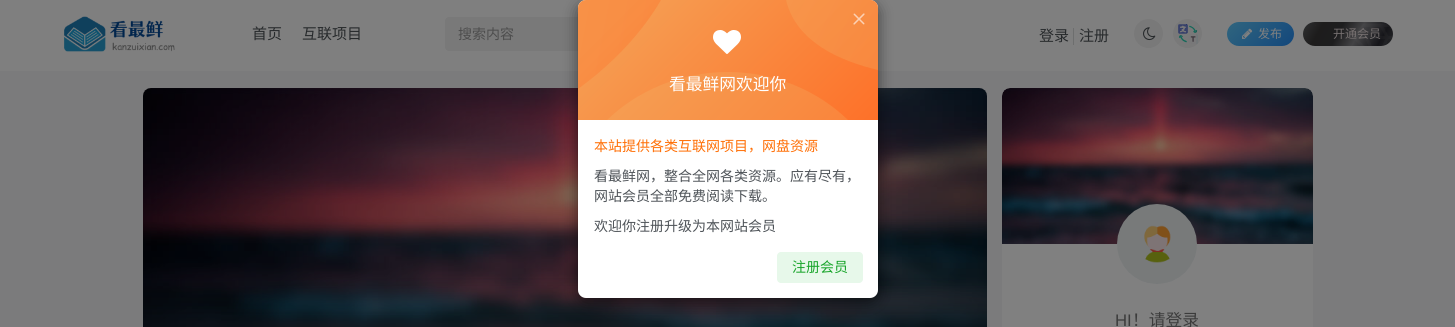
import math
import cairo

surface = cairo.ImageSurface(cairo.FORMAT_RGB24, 1455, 327)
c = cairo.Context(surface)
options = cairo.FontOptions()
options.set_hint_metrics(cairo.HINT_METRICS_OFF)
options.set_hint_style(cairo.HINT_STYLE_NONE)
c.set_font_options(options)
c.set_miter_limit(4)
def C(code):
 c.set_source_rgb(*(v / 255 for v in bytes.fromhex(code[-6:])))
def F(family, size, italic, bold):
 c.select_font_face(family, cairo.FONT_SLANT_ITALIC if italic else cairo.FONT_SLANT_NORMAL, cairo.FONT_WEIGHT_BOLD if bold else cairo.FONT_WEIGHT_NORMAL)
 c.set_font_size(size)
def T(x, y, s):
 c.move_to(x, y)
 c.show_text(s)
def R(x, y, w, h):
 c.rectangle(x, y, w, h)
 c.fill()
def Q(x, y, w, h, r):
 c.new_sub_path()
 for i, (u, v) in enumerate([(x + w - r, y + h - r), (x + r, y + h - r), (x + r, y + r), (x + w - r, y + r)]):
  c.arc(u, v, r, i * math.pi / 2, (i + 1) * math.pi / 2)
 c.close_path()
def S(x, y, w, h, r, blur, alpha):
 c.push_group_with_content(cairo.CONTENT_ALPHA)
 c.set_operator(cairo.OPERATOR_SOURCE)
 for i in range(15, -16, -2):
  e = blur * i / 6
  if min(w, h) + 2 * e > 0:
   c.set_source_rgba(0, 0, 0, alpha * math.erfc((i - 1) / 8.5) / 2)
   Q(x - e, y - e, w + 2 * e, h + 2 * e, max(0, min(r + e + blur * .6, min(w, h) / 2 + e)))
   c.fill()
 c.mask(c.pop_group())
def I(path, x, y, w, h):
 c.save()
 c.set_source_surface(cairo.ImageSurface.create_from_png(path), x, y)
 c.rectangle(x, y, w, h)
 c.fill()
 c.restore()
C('7b7b7c')
c.paint()
C('7f7f7f')
R(0,0,1455,71)
I('1.png',64,16,111,36)
F('Noto Sans CJK SC',15,0,0)
C('272a2c')
T(252,39,'首页')
T(302,39,'互联项目')
C('797979')
Q(445,17,207,34,4)
c.fill()
F('Noto Sans CJK SC',14,0,0)
C('4d4d4d')
T(458,39,'搜索内容')
F('Noto Sans CJK SC',15,0,0)
C('272a2c')
T(1039,41,'登录')
C('6d6e6e')
R(1073,28,1,17)
C('272a2c')
T(1079,41,'注册')
C('797979')
c.new_path()
c.arc(1148.5,33.5,14.5,0,2 * math.pi)
c.fill()
I('2.png',1143,27,13,14)
c.arc(1187.5,33.5,14.5,0,2 * math.pi)
c.fill()
I('3.png',1178,24,20,20)
gradient = cairo.LinearGradient(1238,11,1283,57)
gradient.add_color_stop_rgba(.1,0.176,0.384,0.494,1)
gradient.add_color_stop_rgba(1,0.075,0.278,0.486,1)
c.set_source(gradient)
Q(1227,22,67,24,12)
c.fill()
I('4.png',1242,28,11,11)
F('Noto Sans CJK SC',12,0,0)
C('808080')
T(1258,38,'发布')
gradient = cairo.LinearGradient(1387,56,1309,12)
gradient.add_color_stop_rgba(0,0.149,0.153,0.161,1)
gradient.add_color_stop_rgba(.15,0.082,0.082,0.098,1)
gradient.add_color_stop_rgba(.4,0.263,0.263,0.271,1)
gradient.add_color_stop_rgba(.6,0.114,0.114,0.118,1)
gradient.add_color_stop_rgba(.8,0.114,0.11,0.11,1)
gradient.add_color_stop_rgba(1,0.184,0.188,0.192,1)
c.set_source(gradient)
Q(1303,22,90,24,12)
c.fill()
C('272423')
R(1315,25,1,1)
C('767070')
T(1333,38,'开通会员')
I('5.png',1353,24,40,22)
I('8.png',143,88,844,239)
gradient = cairo.LinearGradient(565,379,565,88)
gradient.add_color_stop_rgba(.14,0.059,0.082,0.098,.4)
gradient.add_color_stop_rgba(.38,0.059,0.082,0.098,0)
c.set_source(gradient)
R(143,278,844,49)
C('000000')
S(578,5,300,298,8,7.5,.5)
C('ffffff')
Q(578,0,300,298,8)
c.fill()
gradient = cairo.LinearGradient(638,-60,878,180)
gradient.add_color_stop_rgba(.1,0.961,0.624,0.329,1)
gradient.add_color_stop_rgba(1,1,0.412,0.133,1)
c.set_source(gradient)
c.new_path()
c.move_to(586,0)
c.line_to(870,0)
c.curve_to(874.5,0,878,3.5,878,8)
c.line_to(878,120)
c.line_to(578,120)
c.line_to(578,8)
c.curve_to(578,3.5,581.5,0,586,0)
c.close_path()
c.fill()
gradient = cairo.LinearGradient(574,64,881,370)
gradient.add_color_stop_rgba(.1,0.961,0.624,0.329,1)
gradient.add_color_stop_rgba(1,1,0.412,0.133,1)
c.set_source(gradient)
c.new_path()
c.move_to(728,72)
c.curve_to(775,72,818,91,848,120)
c.line_to(607,120)
c.curve_to(637,91,680,72,728,72)
c.close_path()
c.fill()
gradient = cairo.LinearGradient(291,-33,719,51)
gradient.add_color_stop_rgba(.1,0.961,0.624,0.329,.4)
gradient.add_color_stop_rgba(1,1,0.412,0.133,.4)
c.set_source(gradient)
c.new_path()
c.move_to(586,0)
c.line_to(661,0)
c.curve_to(643,31,615,62,578,89)
c.line_to(578,8)
c.curve_to(578,4,582,0,586,0)
c.close_path()
c.fill()
gradient = cairo.LinearGradient(798,-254,1419,48)
gradient.add_color_stop_rgba(.1,0.961,0.624,0.329,.6)
gradient.add_color_stop_rgba(1,1,0.412,0.133,.6)
c.set_source(gradient)
c.new_path()
c.move_to(878,70)
c.curve_to(840,61,796,42,786,0)
c.line_to(870,0)
c.curve_to(874,0,878,4,878,8)
c.close_path()
c.fill()
I('6.png',853,13,12,12)
I('7.png',713,30,28,24)
F('Noto Sans CJK SC',16.75,0,0)
C('ffffff')
T(669,90,'看最鲜网欢迎你')
F('Noto Sans CJK SC',14,0,0)
C('ff6f06')
T(594,151,'本站提供各类互联网项目，网盘资源')
C('4e5358')
T(594,181,'看最鲜网，整合全网各类资源。应有尽有，')
T(594,201,'网站会员全部免费阅读下载。')
T(594,231,'欢迎你注册升级为本网站会员')
C('e7f8ea')
Q(777,252,86,31,4)
c.fill()
C('18a52a')
T(792,272,'注册会员')
C('808080')
Q(1002,88,311,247,8)
c.fill()
I('9.png',1002,88,311,156)
I('10.png',1117,204,80,80)
F('Liberation Sans',16.75,0,0)
C('3c3c3c')
T(1115,326,'HI')
F('Noto Sans CJK SC',16.75,0,0)
T(1132,326,'！请登录')
surface.write_to_png('o.png')
